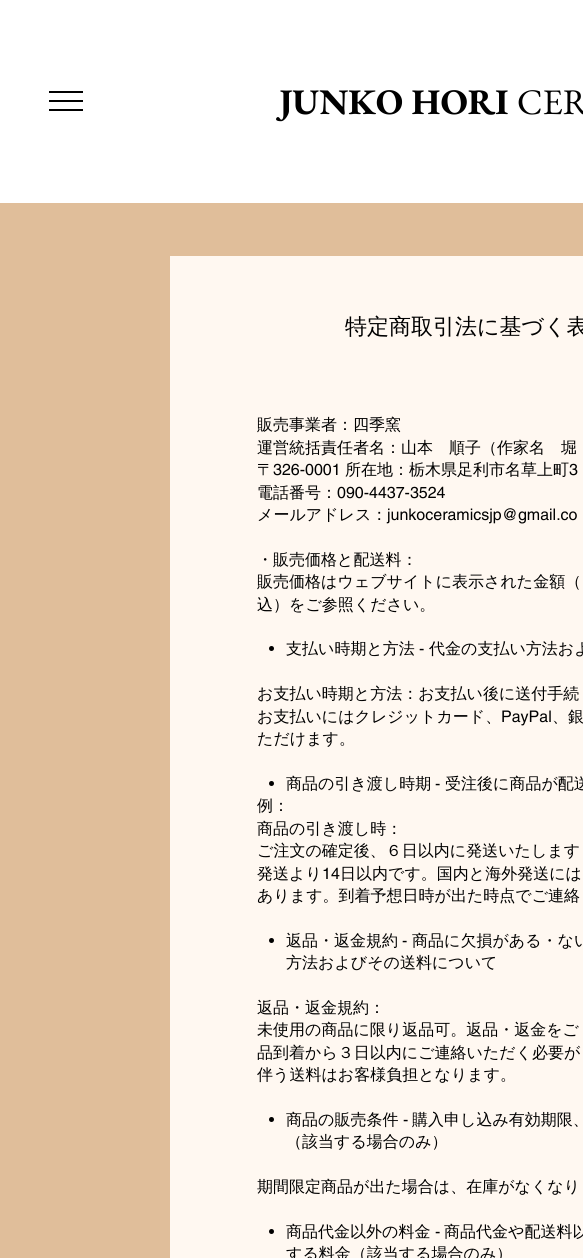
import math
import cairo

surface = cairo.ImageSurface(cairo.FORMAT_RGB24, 583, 1258)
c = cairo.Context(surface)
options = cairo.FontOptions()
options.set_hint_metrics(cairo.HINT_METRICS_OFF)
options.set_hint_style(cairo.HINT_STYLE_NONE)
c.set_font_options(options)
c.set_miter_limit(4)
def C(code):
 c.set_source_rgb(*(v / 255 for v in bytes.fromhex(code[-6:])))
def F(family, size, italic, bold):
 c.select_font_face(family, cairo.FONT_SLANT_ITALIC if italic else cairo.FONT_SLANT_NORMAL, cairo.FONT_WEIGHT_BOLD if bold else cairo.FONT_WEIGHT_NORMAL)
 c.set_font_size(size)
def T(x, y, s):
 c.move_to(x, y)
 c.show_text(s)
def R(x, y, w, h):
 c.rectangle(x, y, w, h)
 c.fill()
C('e0be9a')
c.paint()
C('ffffff')
R(0,0,583,203)
C('000000')
R(49,91,34,2)
R(49,100,34,2)
R(49,109,34,2)
F('EB Garamond',36,0,1)
T(279,114,'JUNKO HORI')
F('EB Garamond',36,0,0)
T(517,114,'CER')
C('fff8f1')
R(170,256,413,1002)
F('WenQuanYi Zen Hei Medium',22,0,0)
C('000000')
T(345,334,'特定商取引法に基づく表')
F('WenQuanYi Zen Hei Medium',16,0,0)
T(257,430,'販売事業者：四季窯')
T(257,453,'運営統括責任者名：山本　順子（作家名　堀')
T(257,475,'〒')
F('helvetica',16,0,0)
T(273,475,'326-0001')
F('WenQuanYi Zen Hei Medium',16,0,0)
T(345,475,'所在地：栃木県足利市名草上町')
F('helvetica',16,0,0)
T(569,475,'3')
F('WenQuanYi Zen Hei Medium',16,0,0)
T(257,498,'電話番号：')
F('helvetica',16,0,0)
T(337,498,'090-4437-3524')
F('WenQuanYi Zen Hei Medium',16,0,0)
T(257,520,'メールアドレス：')
F('helvetica',16,0,0)
T(387,520,'junkoceramicsjp@gmail.co')
F('WenQuanYi Zen Hei Medium',16,0,0)
T(257,565,'・販売価格と配送料：')
T(257,587,'販売価格はウェブサイトに表示された金額（')
T(257,610,'込）をご参照ください。')
c.new_path()
c.arc(271.5,648.5,2.5,0,2 * math.pi)
c.fill()
T(286,654,'支払い時期と方法')
F('helvetica',16,0,0)
T(419,654,'-')
F('WenQuanYi Zen Hei Medium',16,0,0)
T(429,654,'代金の支払い方法およ')
T(257,699,'お支払い時期と方法：お支払い後に送付手続')
T(257,722,'お支払いにはクレジットカード、')
F('helvetica',16,0,0)
T(501,722,'PayPal')
F('WenQuanYi Zen Hei Medium',16,0,0)
T(552,722,'、銀')
T(257,744,'ただけます。')
c.new_path()
c.arc(271.5,783.5,2.5,0,2 * math.pi)
c.fill()
T(286,789,'商品の引き渡し時期')
F('helvetica',16,0,0)
T(435,789,'-')
F('WenQuanYi Zen Hei Medium',16,0,0)
T(445,789,'受注後に商品が配送')
T(257,811,'例：')
T(257,834,'商品の引き渡し時：')
T(257,856,'ご注文の確定後、６日以内に発送いたします')
T(257,879,'発送より')
F('helvetica',16,0,0)
T(322,879,'14')
F('WenQuanYi Zen Hei Medium',16,0,0)
T(340,879,'日以内です。国内と海外発送には')
T(257,901,'あります。到着予想日時が出た時点でご連絡')
c.new_path()
c.arc(271.5,940.5,2.5,0,2 * math.pi)
c.fill()
T(286,946,'返品・返金規約')
F('helvetica',16,0,0)
T(402,946,'-')
F('WenQuanYi Zen Hei Medium',16,0,0)
T(412,946,'商品に欠損がある・ない')
T(286,968,'方法およびその送料について')
T(257,1013,'返品・返金規約：')
T(257,1035,'未使用の商品に限り返品可。返品・返金をご')
T(257,1058,'品到着から３日以内にご連絡いただく必要が')
T(257,1080,'伴う送料はお客様負担となります。')
c.new_path()
c.arc(271.5,1119.5,2.5,0,2 * math.pi)
c.fill()
T(286,1125,'商品の販売条件')
F('helvetica',16,0,0)
T(403,1125,'-')
F('WenQuanYi Zen Hei Medium',16,0,0)
T(412,1125,'購入申し込み有効期限、')
T(286,1147,'（該当する場合のみ）')
T(257,1192,'期間限定商品が出た場合は、在庫がなくなり')
c.new_path()
c.arc(271.5,1231.5,2.5,0,2 * math.pi)
c.fill()
T(286,1237,'商品代金以外の料金')
F('helvetica',16,0,0)
T(435,1237,'-')
F('WenQuanYi Zen Hei Medium',16,0,0)
T(444,1237,'商品代金や配送料以')
T(286,1259,'する料金（該当する場合のみ）')
surface.write_to_png('o.png')
